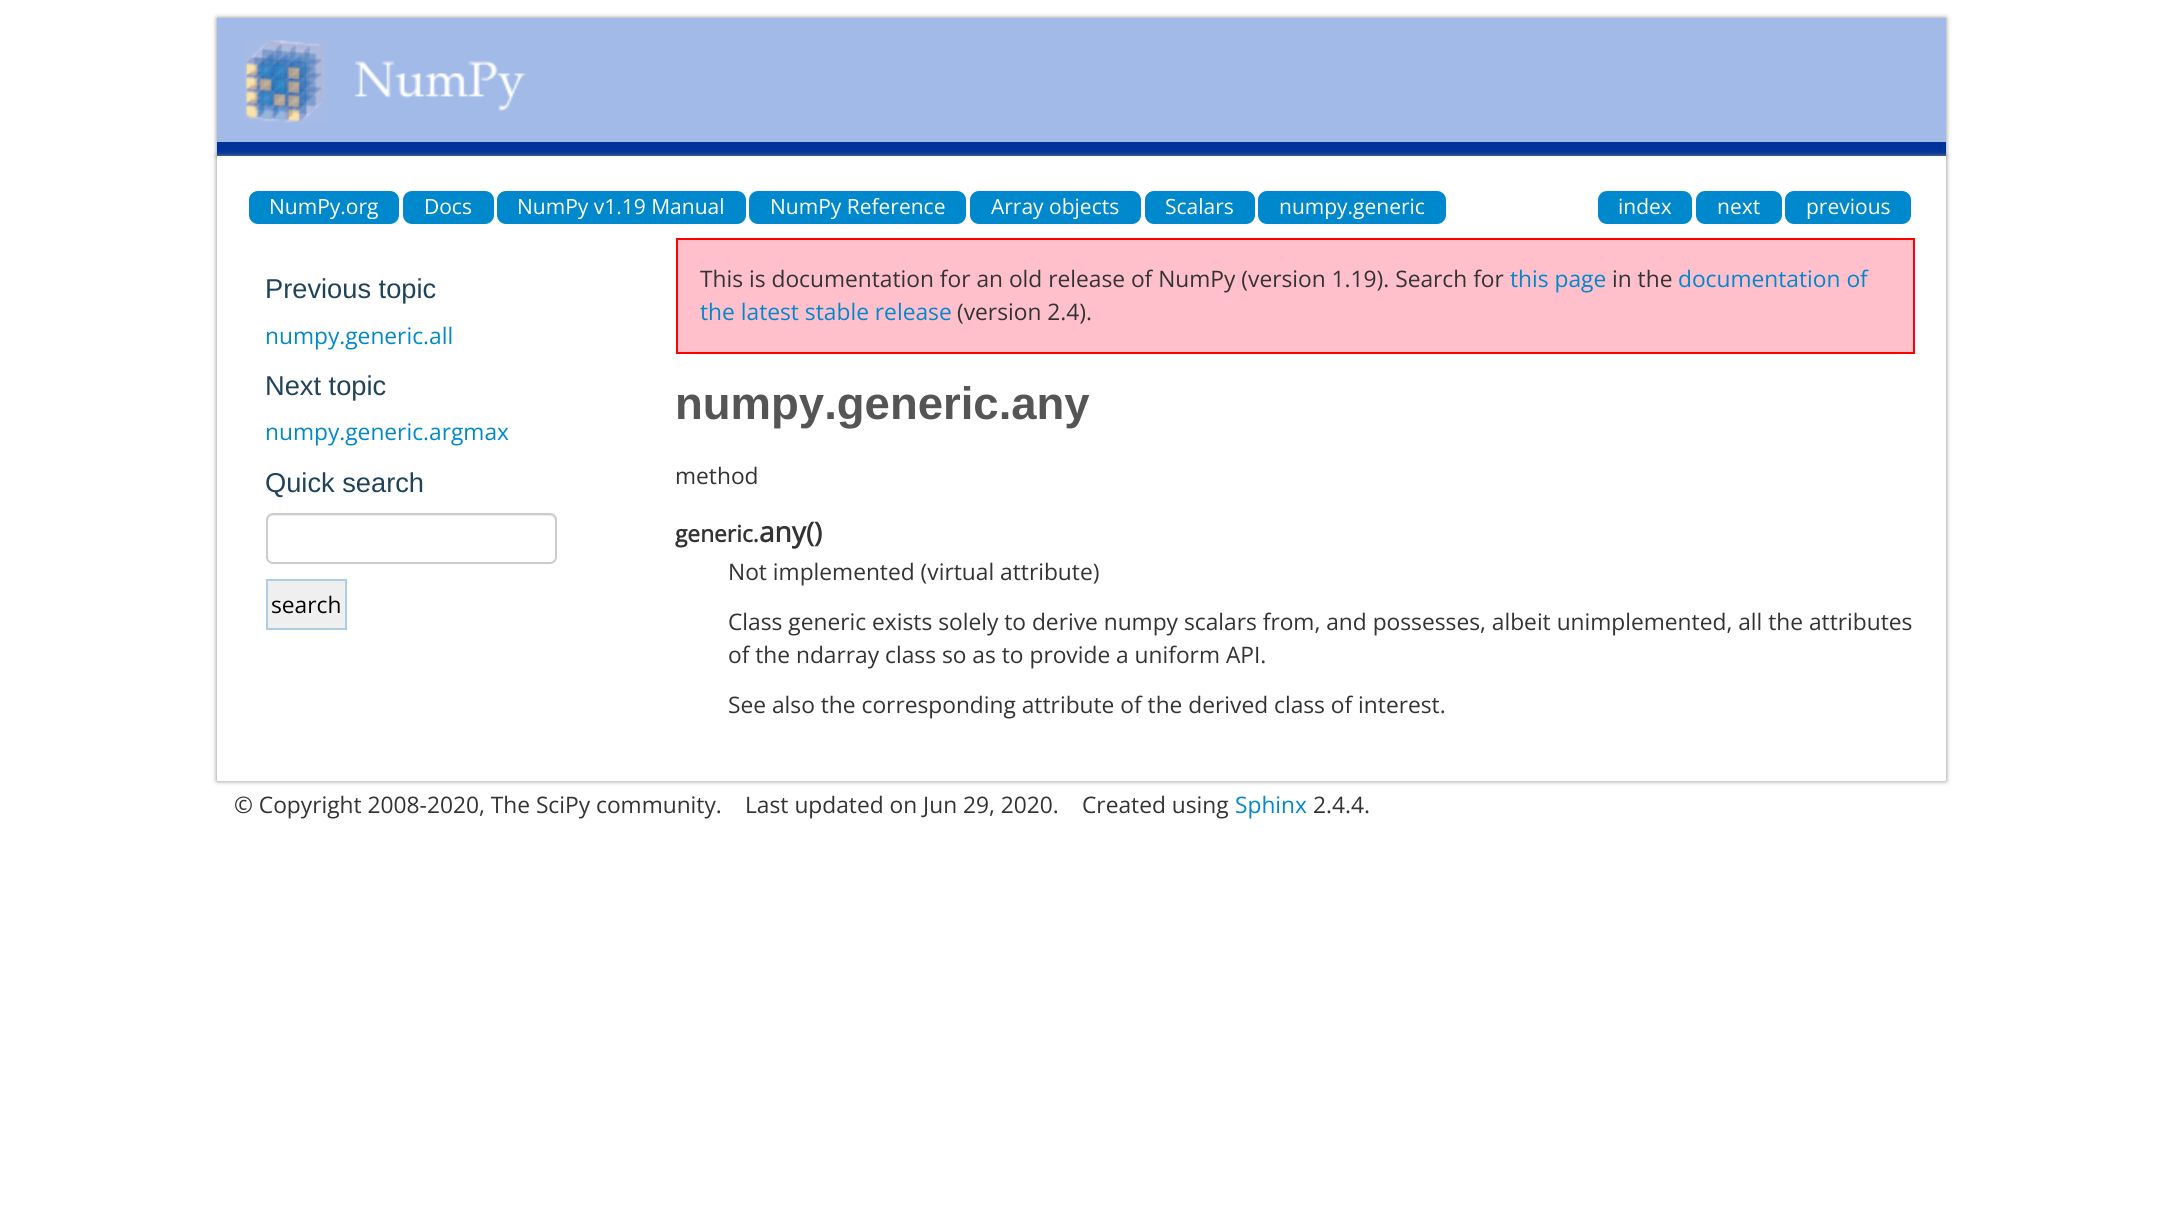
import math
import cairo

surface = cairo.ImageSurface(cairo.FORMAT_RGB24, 2162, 1228)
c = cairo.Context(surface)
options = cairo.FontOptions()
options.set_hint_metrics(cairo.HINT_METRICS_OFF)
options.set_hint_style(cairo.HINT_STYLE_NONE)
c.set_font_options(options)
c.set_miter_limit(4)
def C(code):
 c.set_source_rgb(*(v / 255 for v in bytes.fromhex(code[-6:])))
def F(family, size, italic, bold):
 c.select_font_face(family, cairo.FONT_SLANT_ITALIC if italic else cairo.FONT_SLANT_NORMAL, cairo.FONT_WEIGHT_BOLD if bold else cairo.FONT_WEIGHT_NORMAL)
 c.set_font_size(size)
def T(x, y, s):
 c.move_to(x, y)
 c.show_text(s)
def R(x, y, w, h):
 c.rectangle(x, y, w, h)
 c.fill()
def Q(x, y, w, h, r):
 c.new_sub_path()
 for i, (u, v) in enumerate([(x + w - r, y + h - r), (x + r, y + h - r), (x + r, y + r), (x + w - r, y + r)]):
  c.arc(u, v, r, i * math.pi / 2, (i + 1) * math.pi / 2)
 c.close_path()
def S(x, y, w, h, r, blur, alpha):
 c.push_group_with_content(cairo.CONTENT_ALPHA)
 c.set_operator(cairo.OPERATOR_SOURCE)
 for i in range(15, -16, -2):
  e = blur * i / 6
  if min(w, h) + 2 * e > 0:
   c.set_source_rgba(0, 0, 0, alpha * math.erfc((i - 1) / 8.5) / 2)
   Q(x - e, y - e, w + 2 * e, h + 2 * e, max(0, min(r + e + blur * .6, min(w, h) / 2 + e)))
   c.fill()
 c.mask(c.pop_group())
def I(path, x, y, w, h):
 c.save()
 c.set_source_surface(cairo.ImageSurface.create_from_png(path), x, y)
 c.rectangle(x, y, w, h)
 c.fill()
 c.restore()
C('ffffff')
c.paint()
C('888888')
S(217,18,1729,138,0,2.5,1)
C('a2bae8')
R(217,18,1729,124)
C('003399')
R(217,142,1729,14)
I('1.png',244,39,282,84)
C('888888')
S(217,156,1729,625,0,2.5,1)
C('ffffff')
R(217,156,1729,625)
C('0088cc')
Q(249,191,150,33,9)
c.fill()
F('Open Sans',21,0,0)
C('ffffff')
T(269,214,'NumPy.org')
C('0088cc')
Q(403,191,91,33,9)
c.fill()
C('ffffff')
T(424,214,'Docs')
C('0088cc')
Q(497,191,249,33,9)
c.fill()
C('ffffff')
T(517,214,'NumPy v1.19 Manual')
C('0088cc')
Q(749,191,217,33,9)
c.fill()
C('ffffff')
T(770,214,'NumPy Reference')
C('0088cc')
Q(970,191,171,33,9)
c.fill()
C('ffffff')
T(991,214,'Array objects')
C('0088cc')
Q(1145,191,110,33,9)
c.fill()
C('ffffff')
T(1165,214,'Scalars')
C('0088cc')
Q(1258,191,188,33,9)
c.fill()
C('ffffff')
T(1279,214,'numpy.generic')
C('0088cc')
Q(1598,191,94,33,9)
c.fill()
C('ffffff')
T(1618,214,'index')
C('0088cc')
Q(1696,191,86,33,9)
c.fill()
C('ffffff')
T(1717,214,'next')
C('0088cc')
Q(1785,191,126,33,9)
c.fill()
C('ffffff')
T(1806,214,'previous')
F('Liberation Sans',27.25,0,0)
C('20435c')
T(265,298,'Previous topic')
F('Open Sans',22.75,0,0)
C('0088cc')
T(265,344,'numpy.generic.all')
F('Liberation Sans',27.25,0,0)
C('20435c')
T(265,395,'Next topic')
F('Open Sans',22.75,0,0)
C('0088cc')
T(265,440,'numpy.generic.argmax')
F('Liberation Sans',27.25,0,0)
C('20435c')
T(265,492,'Quick search')
C('ececec')
c.new_path()
c.move_to(273,516)
c.line_to(550,516)
c.curve_to(552,516,555,519,555,522)
c.curve_to(555,519,554,515,550,515)
c.line_to(272,515)
c.curve_to(268,516,268,519,268,522)
c.curve_to(268,519,270,516,273,516)
c.close_path()
c.fill()
Q(267,514,289,49,6)
C('cccccc')
c.stroke()
C('efefef')
c.rectangle(267,580,79,49)
c.fill_preserve()
C('aacfe4')
c.stroke()
F('Open Sans',22.75,0,0)
C('000000')
T(271,613,'search')
C('ffc0cb')
c.rectangle(677,239,1237,114)
c.fill_preserve()
C('ff0000')
c.stroke()
C('333333')
T(700,287,'This is documentation for an old release of NumPy (version 1.19). Search for')
C('0088cc')
T(1510,287,'this page')
C('333333')
T(1612,287,'in the')
C('0088cc')
T(1678,287,'documentation of')
T(700,320,'the latest stable release')
C('333333')
T(957,320,'(version 2.4).')
F('Liberation Sans',45.5,0,1)
C('555555')
T(675,419,'numpy.generic.any')
F('Open Sans',22.75,0,0)
C('333333')
T(675,484,'method')
F('Open Sans',22.75,0,1)
T(675,542,'generic.')
F('Open Sans',28,0,1)
T(759,542,'any')
F('Open Sans',27.25,0,1)
T(806,542,'()')
F('Open Sans',22.75,0,0)
T(728,580,'Not implemented (virtual attribute)')
T(728,630,'Class generic exists solely to derive numpy scalars from, and possesses, albeit unimplemented, all the attributes')
T(728,663,'of the ndarray class so as to provide a uniform API.')
T(728,713,'See also the corresponding attribute of the derived class of interest.')
T(234,813,'© Copyright 2008-2020, The SciPy community.')
T(745,813,'Last updated on Jun 29, 2020.')
T(1082,813,'Created using')
C('0088cc')
T(1235,813,'Sphinx')
C('333333')
T(1313,813,'2.4.4.')
surface.write_to_png('o.png')
